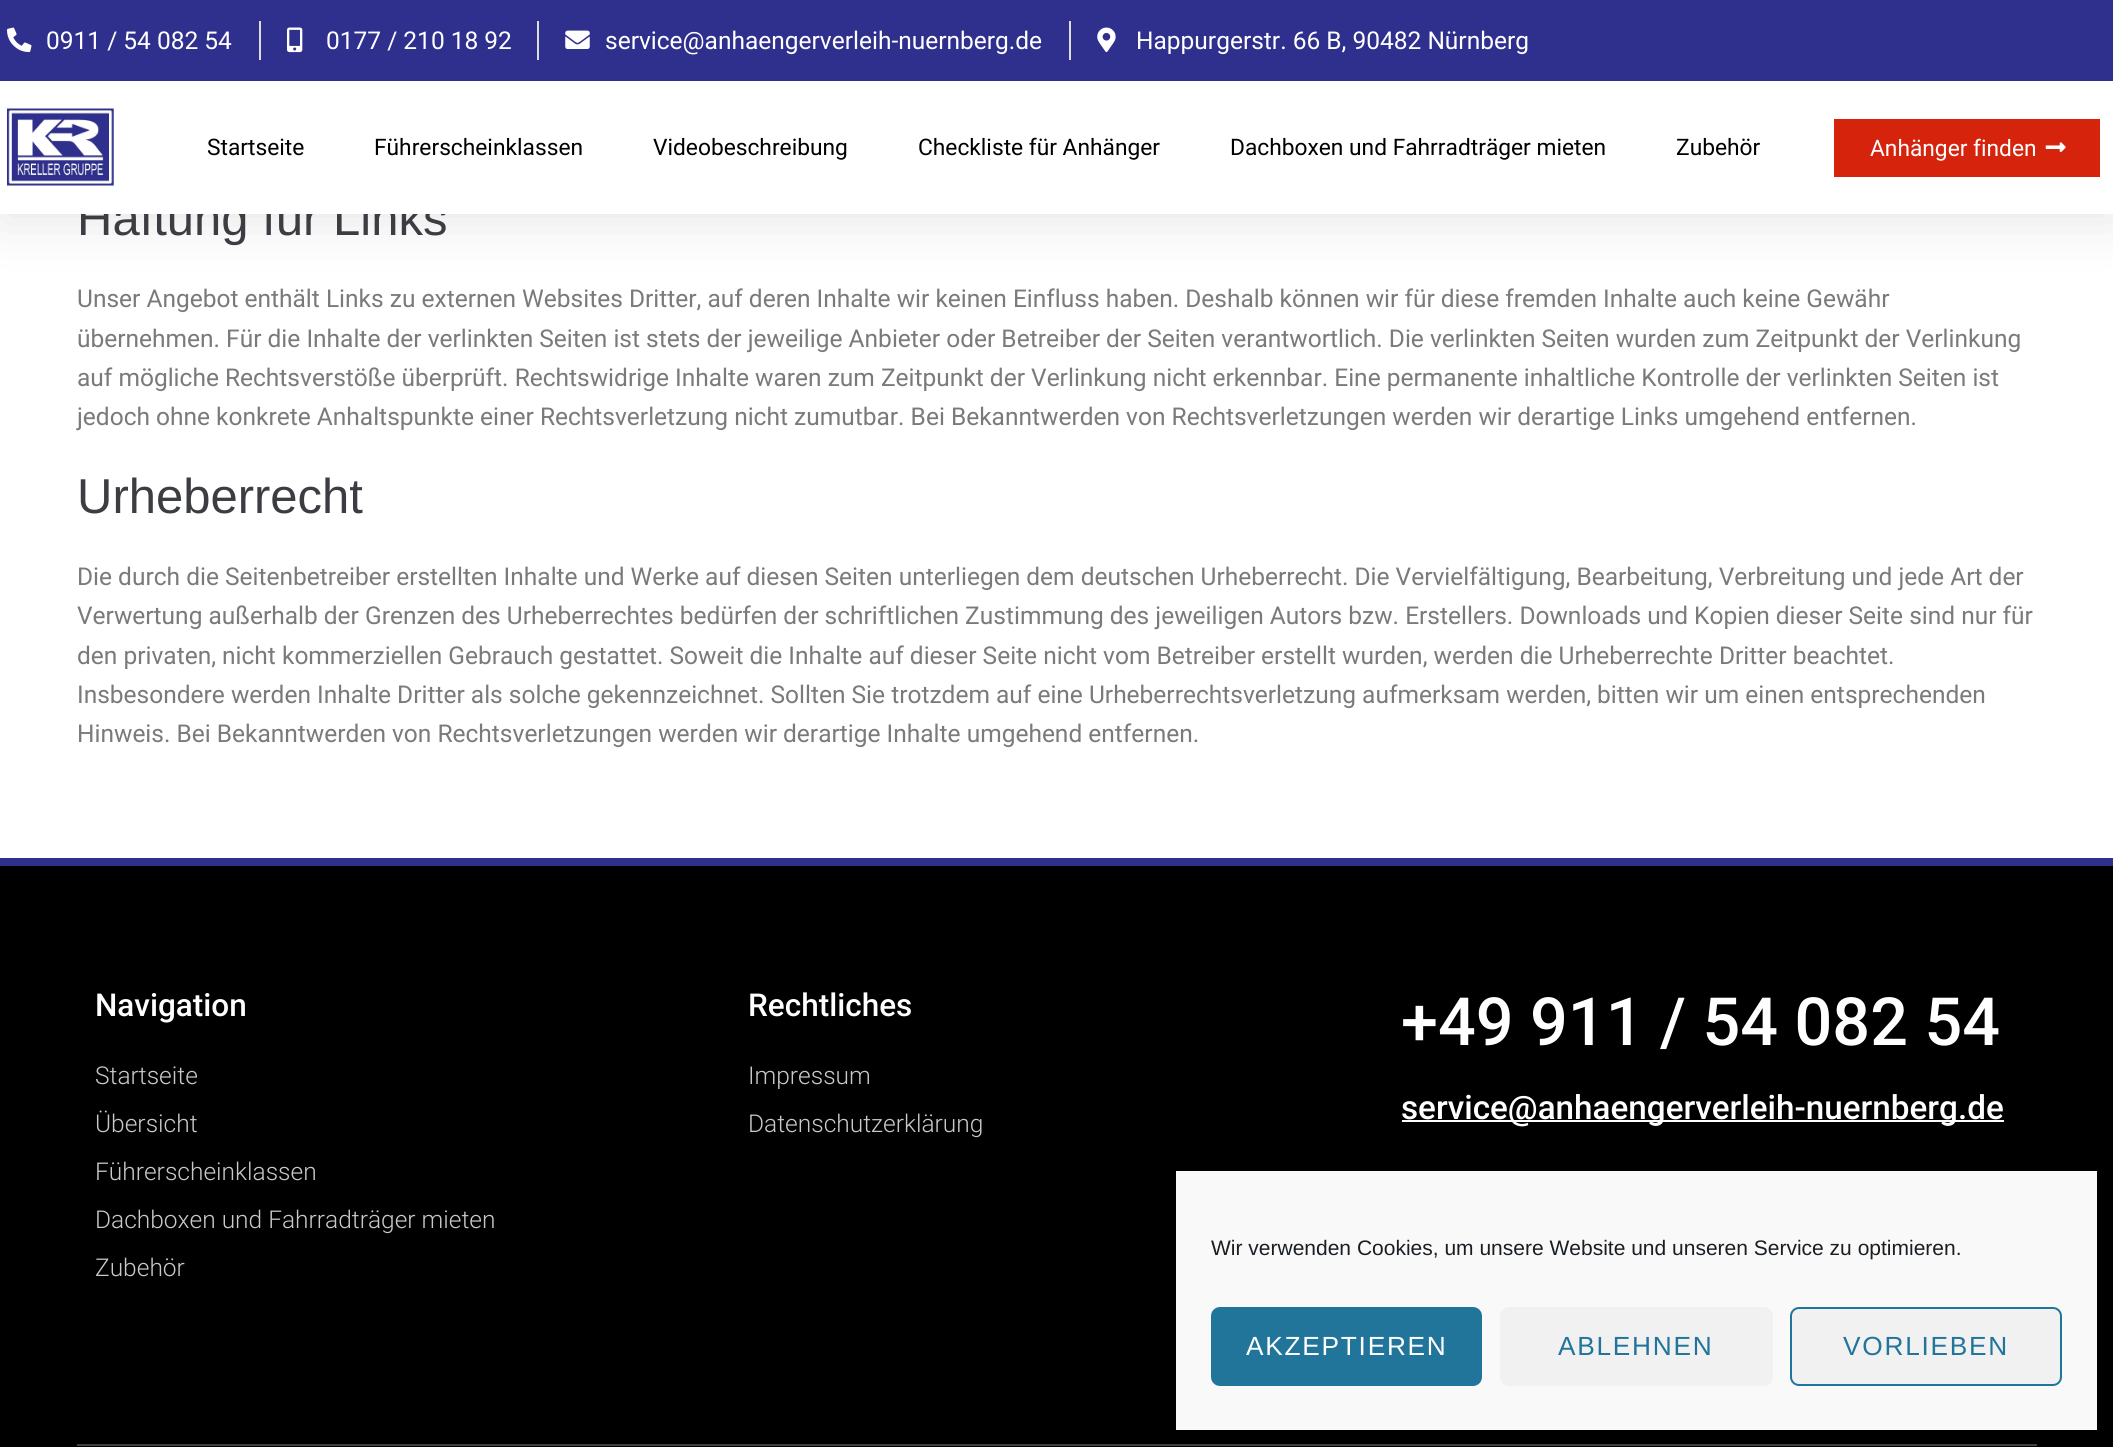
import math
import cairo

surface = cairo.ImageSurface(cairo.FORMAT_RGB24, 2113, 1447)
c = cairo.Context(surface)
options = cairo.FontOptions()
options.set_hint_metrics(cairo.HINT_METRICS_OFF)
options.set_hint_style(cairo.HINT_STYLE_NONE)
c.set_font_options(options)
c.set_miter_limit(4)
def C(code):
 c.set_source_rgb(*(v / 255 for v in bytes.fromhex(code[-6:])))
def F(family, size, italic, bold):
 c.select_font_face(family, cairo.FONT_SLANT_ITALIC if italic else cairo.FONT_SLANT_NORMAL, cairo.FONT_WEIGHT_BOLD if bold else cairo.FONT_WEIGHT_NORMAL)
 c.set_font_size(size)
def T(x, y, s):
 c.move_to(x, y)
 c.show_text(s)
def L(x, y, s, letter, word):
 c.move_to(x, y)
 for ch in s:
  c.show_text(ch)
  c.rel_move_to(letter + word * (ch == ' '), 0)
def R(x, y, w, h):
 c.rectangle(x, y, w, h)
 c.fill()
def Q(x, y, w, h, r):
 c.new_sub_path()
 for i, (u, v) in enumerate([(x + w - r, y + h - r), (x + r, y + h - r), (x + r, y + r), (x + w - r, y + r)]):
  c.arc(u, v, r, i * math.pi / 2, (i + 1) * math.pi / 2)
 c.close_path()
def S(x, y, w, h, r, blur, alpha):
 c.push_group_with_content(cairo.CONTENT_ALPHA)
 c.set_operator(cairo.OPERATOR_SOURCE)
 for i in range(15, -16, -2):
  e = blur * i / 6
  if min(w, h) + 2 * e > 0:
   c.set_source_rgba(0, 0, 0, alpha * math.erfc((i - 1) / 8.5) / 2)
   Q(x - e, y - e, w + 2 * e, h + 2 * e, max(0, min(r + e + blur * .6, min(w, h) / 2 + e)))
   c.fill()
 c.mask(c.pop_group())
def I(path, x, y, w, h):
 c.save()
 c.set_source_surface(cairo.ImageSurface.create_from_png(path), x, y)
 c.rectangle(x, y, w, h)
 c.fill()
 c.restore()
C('ffffff')
c.paint()
C('000000')
S(0,9,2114,213,0,26,.1)
C('2f308d')
R(0,0,2113,81)
I('1.png',7,27,25,26)
F('Roboto',24.5,0,0)
C('ffffff')
T(46,49,'0911 / 54 082 54')
C('dddddd')
R(259,21,2,39)
I('2.png',287,27,16,26)
C('ffffff')
T(326,49,'0177 / 210 18 92')
C('dddddd')
R(537,21,2,39)
I('3.png',565,30,25,19)
C('ffffff')
T(605,49,'service@anhaengerverleih-nuernberg.de')
C('dddddd')
R(1069,21,2,39)
I('4.png',1097,27,19,25)
C('ffffff')
T(1136,49,'Happurgerstr. 66 B, 90482 Nürnberg')
F('Liberation Sans',49,0,0)
C('3b3d42')
T(77,235,'Haftung für Links')
C('ffffff')
R(0,81,2113,133)
I('5.png',7,108,107,78)
F('Roboto',22.75,0,0)
C('000000')
T(207,155,'Startseite')
T(374,155,'Führerscheinklassen')
T(653,155,'Videobeschreibung')
T(918,155,'Checkliste für Anhänger')
T(1230,155,'Dachboxen und Fahrradträger mieten')
T(1676,155,'Zubehör')
C('d6230c')
R(1834,119,266,58)
C('ffffff')
T(1870,156,'Anhänger finden')
I('6.png',2045,142,21,11)
F('Roboto',24.5,0,0)
C('7a7a7a')
T(77,307,'Unser Angebot enthält Links zu externen Websites Dritter, auf deren Inhalte wir keinen Einfluss haben. Deshalb können wir für diese fremden Inhalte auch keine Gewähr')
T(77,347,'übernehmen. Für die Inhalte der verlinkten Seiten ist stets der jeweilige Anbieter oder Betreiber der Seiten verantwortlich. Die verlinkten Seiten wurden zum Zeitpunkt der Verlinkung')
T(77,386,'auf mögliche Rechtsverstöße überprüft. Rechtswidrige Inhalte waren zum Zeitpunkt der Verlinkung nicht erkennbar. Eine permanente inhaltliche Kontrolle der verlinkten Seiten ist')
T(77,425,'jedoch ohne konkrete Anhaltspunkte einer Rechtsverletzung nicht zumutbar. Bei Bekanntwerden von Rechtsverletzungen werden wir derartige Links umgehend entfernen.')
F('Liberation Sans',49,0,0)
C('3b3d42')
T(77,513,'Urheberrecht')
F('Roboto',24.5,0,0)
C('7a7a7a')
T(77,585,'Die durch die Seitenbetreiber erstellten Inhalte und Werke auf diesen Seiten unterliegen dem deutschen Urheberrecht. Die Vervielfältigung, Bearbeitung, Verbreitung und jede Art der')
T(77,624,'Verwertung außerhalb der Grenzen des Urheberrechtes bedürfen der schriftlichen Zustimmung des jeweiligen Autors bzw. Erstellers. Downloads und Kopien dieser Seite sind nur für')
T(77,664,'den privaten, nicht kommerziellen Gebrauch gestattet. Soweit die Inhalte auf dieser Seite nicht vom Betreiber erstellt wurden, werden die Urheberrechte Dritter beachtet.')
T(77,703,'Insbesondere werden Inhalte Dritter als solche gekennzeichnet. Sollten Sie trotzdem auf eine Urheberrechtsverletzung aufmerksam werden, bitten wir um einen entsprechenden')
T(77,742,'Hinweis. Bei Bekanntwerden von Rechtsverletzungen werden wir derartige Inhalte umgehend entfernen.')
C('000000')
R(0,866,2113,581)
C('2f308d')
R(0,858,2113,8)
F('Roboto Medium',31.5,0,0)
C('ffffff')
T(95,1016,'Navigation')
F('Roboto Light',24.5,0,0)
C('c9c9c9')
T(95,1084,'Startseite')
T(95,1132,'Übersicht')
T(95,1180,'Führerscheinklassen')
T(95,1228,'Dachboxen und Fahrradträger mieten')
T(95,1276,'Zubehör')
F('Roboto Medium',31.5,0,0)
C('ffffff')
T(748,1016,'Rechtliches')
F('Roboto Light',24.5,0,0)
C('c9c9c9')
T(748,1084,'Impressum')
T(748,1132,'Datenschutzerklärung')
F('Roboto Medium',66.5,0,0)
C('ffffff')
T(1401,1045,'+49 911 / 54 082 54')
R(1402,1120,602,2)
F('Roboto Medium',33.25,0,0)
T(1401,1119,'service@anhaengerverleih-nuernberg.de')
C('404040')
R(77,1444,1960,2)
C('f9f9f9')
R(1176,1171,921,259)
F('Liberation Sans',21,0,0)
C('191e23')
T(1211,1255,'Wir verwenden Cookies, um unsere Website und unseren Service zu optimieren.')
C('21759b')
Q(1212,1308,269,77,8)
c.fill_preserve()
c.stroke()
F('Liberation Sans',26.25,0,0)
C('ffffff')
L(1246,1355,'AKZEPTIEREN',1.75,0)
C('f1f1f1')
Q(1500,1307,273,79,9)
c.fill()
C('21759b')
L(1558,1355,'ABLEHNEN',1.75,0)
C('f1f1f1')
Q(1791,1308,270,77,8)
c.fill_preserve()
C('21759b')
c.stroke()
L(1843,1355,'VORLIEBEN',1.75,0)
surface.write_to_png('o.png')
